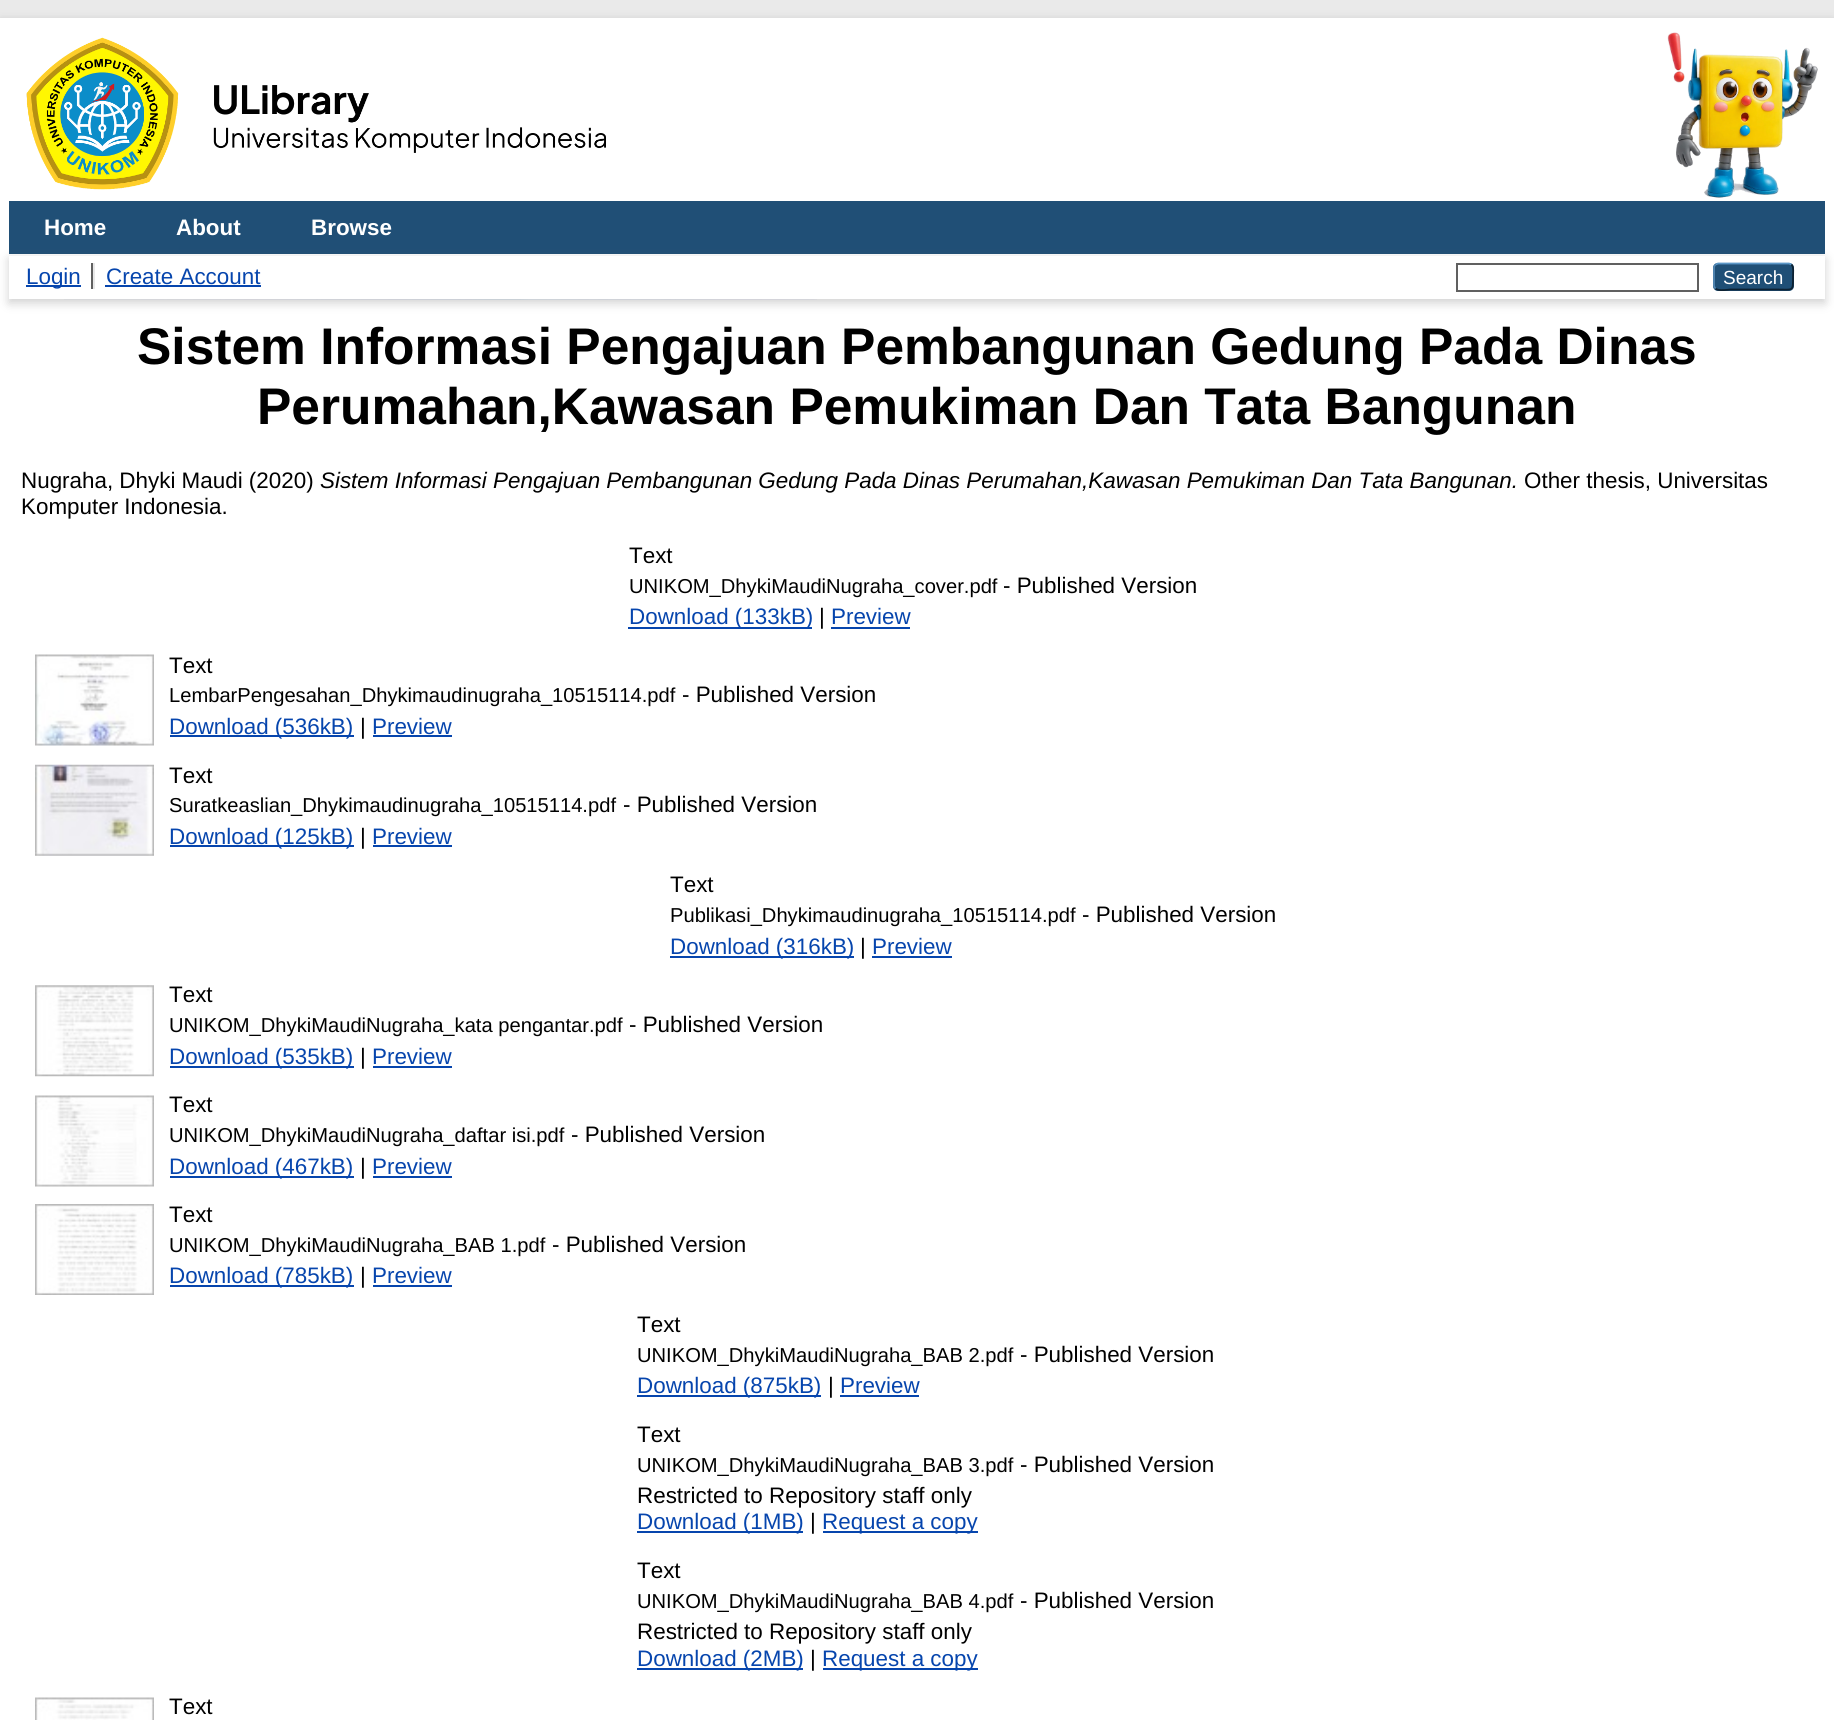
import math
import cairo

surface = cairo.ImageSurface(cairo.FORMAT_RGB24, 1834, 1720)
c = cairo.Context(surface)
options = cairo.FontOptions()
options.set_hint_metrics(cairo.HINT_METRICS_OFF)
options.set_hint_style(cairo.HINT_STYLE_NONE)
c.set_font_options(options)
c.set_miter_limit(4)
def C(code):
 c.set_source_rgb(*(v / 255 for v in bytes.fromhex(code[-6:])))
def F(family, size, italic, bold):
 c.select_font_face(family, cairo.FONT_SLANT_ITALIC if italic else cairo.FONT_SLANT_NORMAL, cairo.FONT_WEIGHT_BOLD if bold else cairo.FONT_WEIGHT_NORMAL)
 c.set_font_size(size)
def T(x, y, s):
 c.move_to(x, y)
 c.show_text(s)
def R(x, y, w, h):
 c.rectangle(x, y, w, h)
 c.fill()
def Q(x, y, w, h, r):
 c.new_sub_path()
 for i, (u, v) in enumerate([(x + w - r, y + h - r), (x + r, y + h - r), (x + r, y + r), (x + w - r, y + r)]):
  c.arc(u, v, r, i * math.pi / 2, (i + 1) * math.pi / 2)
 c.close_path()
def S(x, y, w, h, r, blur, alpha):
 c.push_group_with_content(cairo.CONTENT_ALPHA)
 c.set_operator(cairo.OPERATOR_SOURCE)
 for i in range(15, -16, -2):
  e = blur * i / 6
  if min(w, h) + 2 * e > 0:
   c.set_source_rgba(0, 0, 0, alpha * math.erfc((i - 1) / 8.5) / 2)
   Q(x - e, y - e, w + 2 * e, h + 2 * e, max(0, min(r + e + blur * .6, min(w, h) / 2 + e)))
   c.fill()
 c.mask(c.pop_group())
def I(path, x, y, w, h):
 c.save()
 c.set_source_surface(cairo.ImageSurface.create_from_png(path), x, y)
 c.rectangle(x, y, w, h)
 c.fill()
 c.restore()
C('eaeaea')
c.paint()
C('646464')
S(0,21,1834,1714,0,5,.3)
C('ffffff')
R(0,18,1834,1702)
I('1.png',26,37,580,153)
I('2.png',1667,32,151,166)
I('3.png',64,299,753,1)
C('204f76')
R(9,201,1816,53)
F('Liberation Sans',22.4,0,1)
C('ffffff')
T(44,235,'Home')
T(176,235,'About')
T(311,235,'Browse')
C('646464')
S(9,259,1816,44,0,5,.3)
C('ffffff')
R(9,256,1816,43)
C('606060')
R(91,263,2,26)
C('0645ad')
R(26,285,55,2)
F('Liberation Sans',22.4,0,0)
T(26,284,'Login')
C('e8e8e8')
R(93,263,2,26)
C('0645ad')
T(106,284,'Create Account')
R(105,285,156,2)
c.rectangle(1457,264,241,27)
C('606060')
c.stroke()
C('1f4f76')
Q(1713,263,81,28,5)
c.fill()
c.new_path()
c.move_to(1715.5,264.5)
c.line_to(1718,263.5)
c.line_to(1789,263.5)
c.line_to(1791.5,264.5)
C('5b97c7')
c.set_line_width(1.8)
c.stroke()
c.new_path()
c.move_to(1791.5,264.5)
c.curve_to(1794,267,1793,273.5,1793,276.5)
c.curve_to(1793,292,1793.5,289.5,1777,289.5)
c.line_to(1730,289.5)
c.curve_to(1729.5,289.5,1718.5,291.5,1715.5,288.5)
C('0d2131')
c.stroke()
c.new_path()
c.move_to(1715.5,288.5)
c.curve_to(1714.5,287.5,1714,286.5,1714,285)
c.line_to(1714,268)
c.curve_to(1714,266.5,1714.5,265.5,1715.5,264.5)
C('5287b3')
c.stroke()
F('Liberation Sans',19,0,0)
C('ffffff')
T(1723,284,'Search')
F('Liberation Sans',51.5,0,1)
C('000000')
T(137,364,'Sistem Informasi Pengajuan Pembangunan Gedung Pada Dinas')
T(257,424,'Perumahan,Kawasan Pemukiman Dan Tata Bangunan')
F('Liberation Sans',22.4,0,0)
T(21,488,'Nugraha, Dhyki Maudi (2020)')
F('Liberation Sans',22.4,1,0)
T(320,488,'Sistem Informasi Pengajuan Pembangunan Gedung Pada Dinas Perumahan,Kawasan Pemukiman Dan Tata Bangunan.')
F('Liberation Sans',22.4,0,0)
T(1524,488,'Other thesis, Universitas')
T(21,514,'Komputer Indonesia.')
T(629,563,'Text')
F('Liberation Sans',20.15,0,0)
T(629,593,'UNIKOM_DhykiMaudiNugraha_cover.pdf')
F('Liberation Sans',22.4,0,0)
T(1003,593,'- Published Version')
C('0645ad')
R(628,627,184,2)
T(629,624,'Download (133kB)')
C('000000')
T(819,624,'|')
C('0645ad')
T(831,624,'Preview')
R(831,627,79,2)
I('4.png',35,654,119,92)
C('000000')
T(169,673,'Text')
F('Liberation Sans',20.15,0,0)
T(169,702,'LembarPengesahan_Dhykimaudinugraha_10515114.pdf')
F('Liberation Sans',22.4,0,0)
T(682,702,'- Published Version')
C('0645ad')
R(170,735,184,2)
T(169,734,'Download (536kB)')
C('000000')
T(360,734,'|')
C('0645ad')
T(372,734,'Preview')
R(373,735,79,2)
I('5.png',35,764,119,92)
C('000000')
T(169,783,'Text')
F('Liberation Sans',20.15,0,0)
T(169,812,'Suratkeaslian_Dhykimaudinugraha_10515114.pdf')
F('Liberation Sans',22.4,0,0)
T(623,812,'- Published Version')
C('0645ad')
R(170,845,184,2)
T(169,844,'Download (125kB)')
C('000000')
T(360,844,'|')
C('0645ad')
T(372,844,'Preview')
R(373,845,79,2)
C('000000')
T(670,892,'Text')
F('Liberation Sans',20.15,0,0)
T(670,922,'Publikasi_Dhykimaudinugraha_10515114.pdf')
F('Liberation Sans',22.4,0,0)
T(1082,922,'- Published Version')
C('0645ad')
R(670,956,184,2)
T(670,954,'Download (316kB)')
C('000000')
T(860,954,'|')
C('0645ad')
T(872,954,'Preview')
R(872,956,80,2)
I('6.png',35,985,119,92)
C('000000')
T(169,1002,'Text')
F('Liberation Sans',20.15,0,0)
T(169,1032,'UNIKOM_DhykiMaudiNugraha_kata pengantar.pdf')
F('Liberation Sans',22.4,0,0)
T(629,1032,'- Published Version')
C('0645ad')
R(170,1066,184,2)
T(169,1064,'Download (535kB)')
C('000000')
T(360,1064,'|')
C('0645ad')
T(372,1064,'Preview')
R(373,1066,79,2)
I('7.png',35,1095,119,92)
C('000000')
T(169,1112,'Text')
F('Liberation Sans',20.15,0,0)
T(169,1142,'UNIKOM_DhykiMaudiNugraha_daftar isi.pdf')
F('Liberation Sans',22.4,0,0)
T(571,1142,'- Published Version')
C('0645ad')
R(170,1176,184,2)
T(169,1174,'Download (467kB)')
C('000000')
T(360,1174,'|')
C('0645ad')
T(372,1174,'Preview')
R(373,1176,79,2)
I('8.png',35,1204,119,91)
C('000000')
T(169,1222,'Text')
F('Liberation Sans',20.15,0,0)
T(169,1252,'UNIKOM_DhykiMaudiNugraha_BAB 1.pdf')
F('Liberation Sans',22.4,0,0)
T(552,1252,'- Published Version')
C('0645ad')
R(170,1285,184,2)
T(169,1283,'Download (785kB)')
C('000000')
T(360,1283,'|')
C('0645ad')
T(372,1283,'Preview')
R(373,1285,79,2)
C('000000')
T(637,1332,'Text')
F('Liberation Sans',20.15,0,0)
T(637,1362,'UNIKOM_DhykiMaudiNugraha_BAB 2.pdf')
F('Liberation Sans',22.4,0,0)
T(1020,1362,'- Published Version')
C('0645ad')
R(637,1395,184,2)
T(637,1393,'Download (875kB)')
C('000000')
T(828,1393,'|')
C('0645ad')
T(840,1393,'Preview')
R(840,1395,79,2)
C('000000')
T(637,1442,'Text')
F('Liberation Sans',20.15,0,0)
T(637,1472,'UNIKOM_DhykiMaudiNugraha_BAB 3.pdf')
F('Liberation Sans',22.4,0,0)
T(1020,1472,'- Published Version')
T(637,1503,'Restricted to Repository staff only')
C('0645ad')
R(637,1531,166,2)
T(637,1529,'Download (1MB)')
C('000000')
T(810,1529,'|')
C('0645ad')
R(823,1531,155,2)
T(822,1529,'Request a copy')
C('000000')
T(637,1578,'Text')
F('Liberation Sans',20.15,0,0)
T(637,1608,'UNIKOM_DhykiMaudiNugraha_BAB 4.pdf')
F('Liberation Sans',22.4,0,0)
T(1020,1608,'- Published Version')
T(637,1639,'Restricted to Repository staff only')
C('0645ad')
R(637,1668,166,2)
T(637,1666,'Download (2MB)')
C('000000')
T(810,1666,'|')
C('0645ad')
R(823,1668,155,2)
T(822,1666,'Request a copy')
I('9.png',35,1697,119,23)
C('000000')
T(169,1714,'Text')
surface.write_to_png('o.png')
